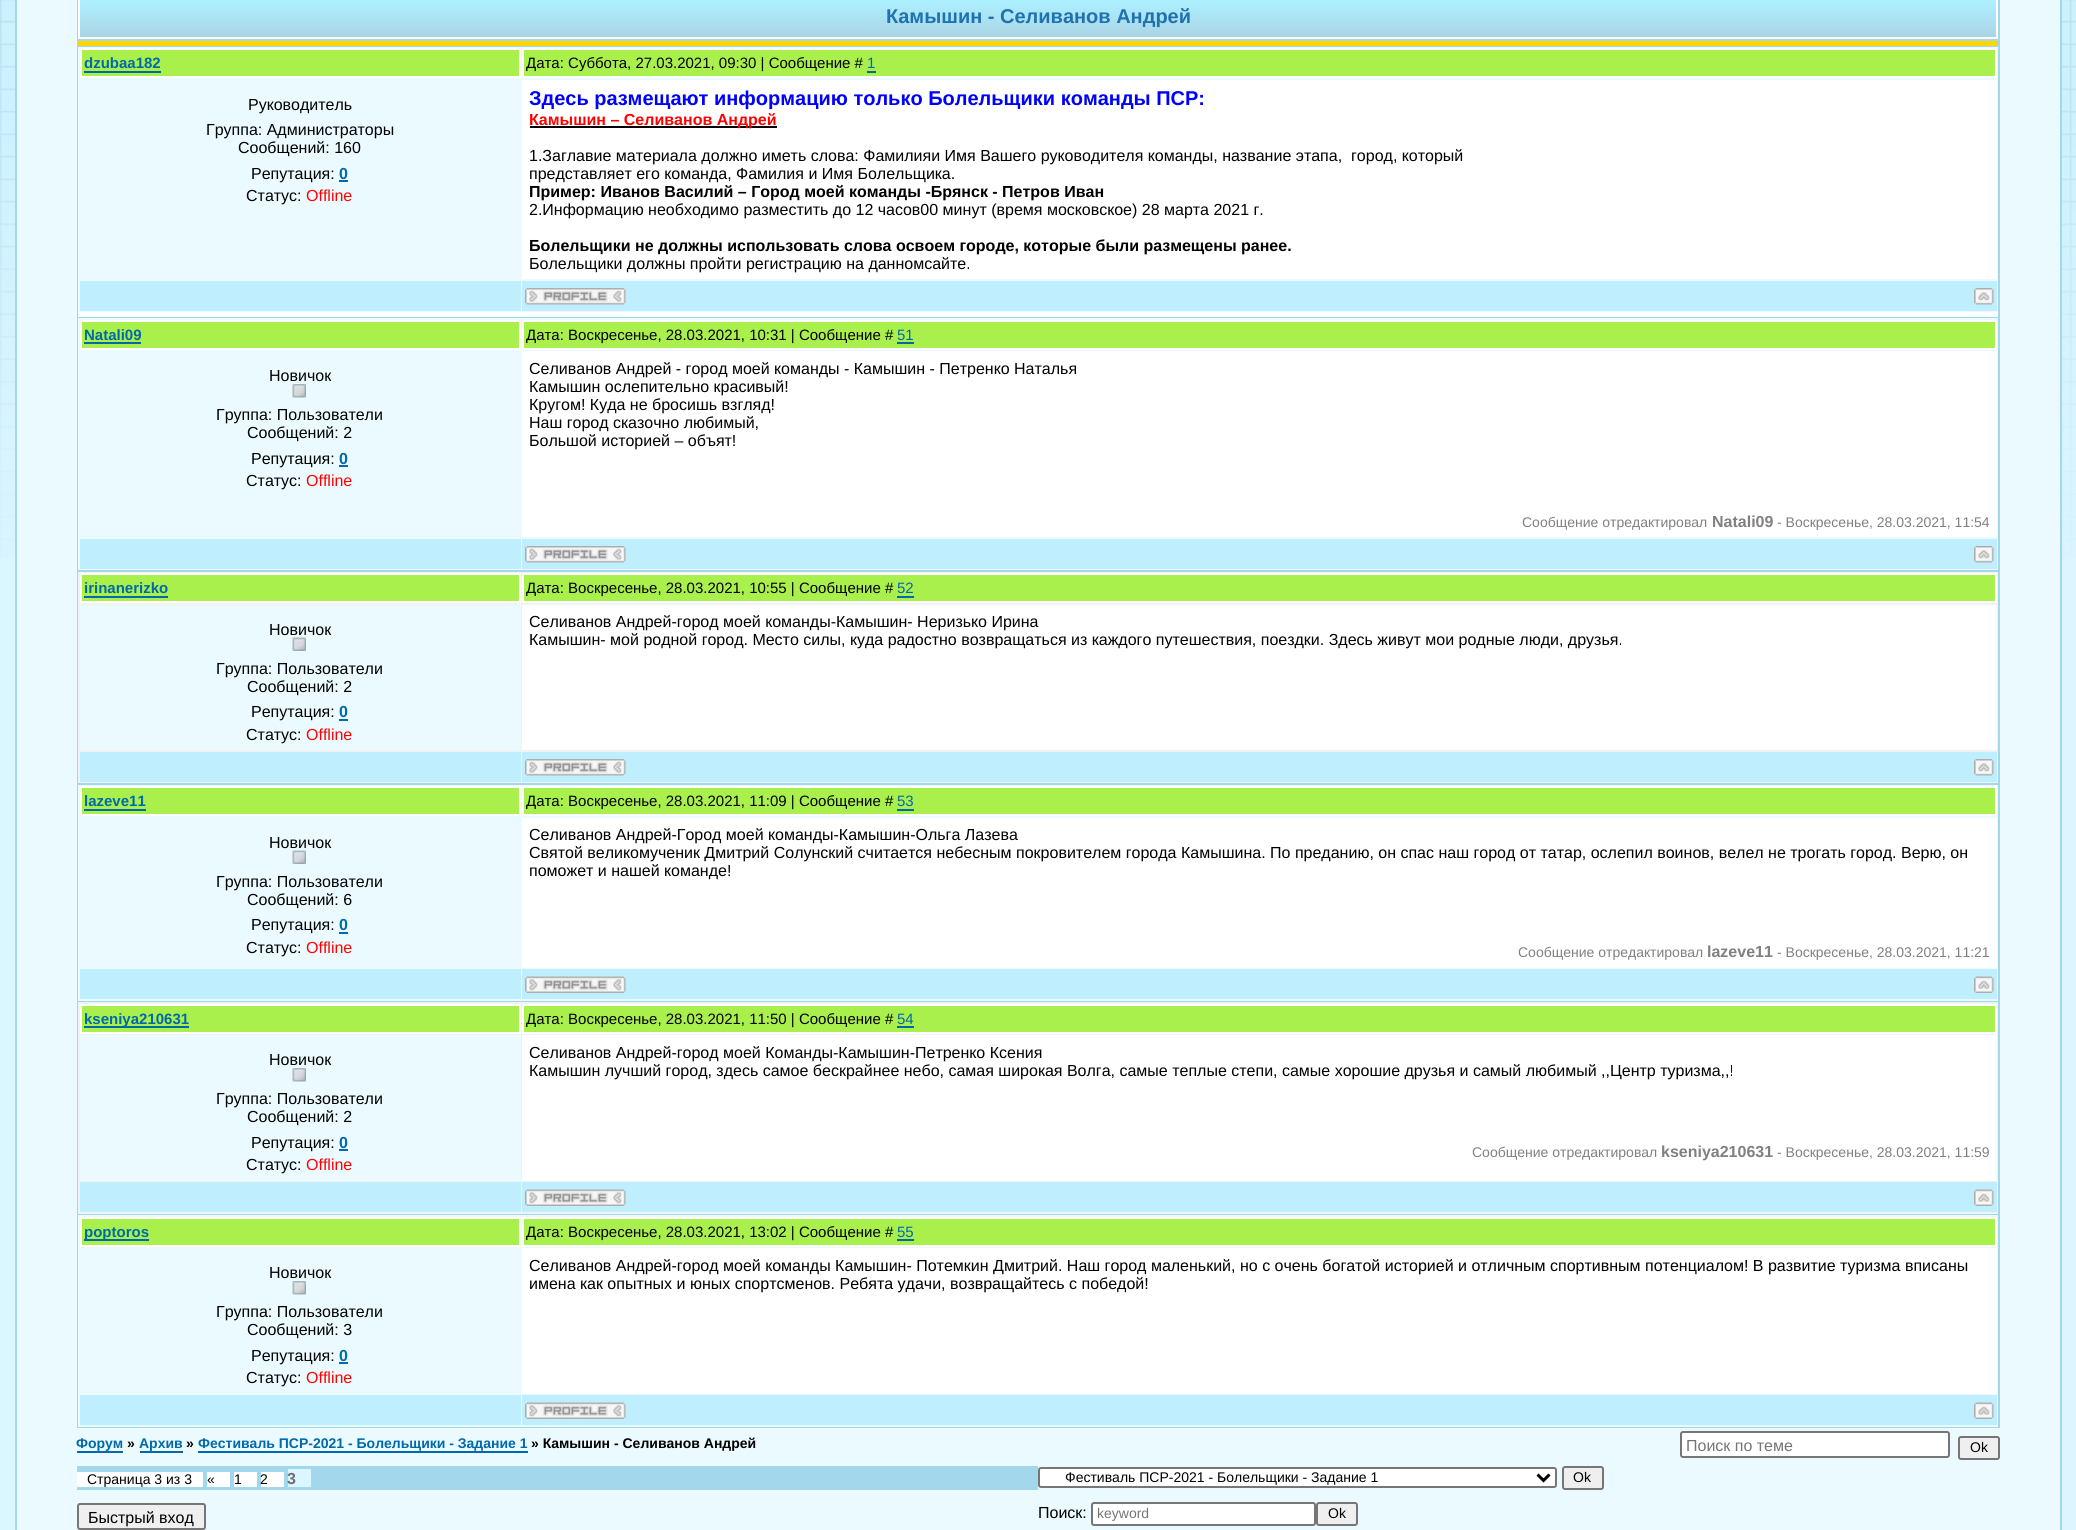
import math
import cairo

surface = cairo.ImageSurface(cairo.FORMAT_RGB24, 2076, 1530)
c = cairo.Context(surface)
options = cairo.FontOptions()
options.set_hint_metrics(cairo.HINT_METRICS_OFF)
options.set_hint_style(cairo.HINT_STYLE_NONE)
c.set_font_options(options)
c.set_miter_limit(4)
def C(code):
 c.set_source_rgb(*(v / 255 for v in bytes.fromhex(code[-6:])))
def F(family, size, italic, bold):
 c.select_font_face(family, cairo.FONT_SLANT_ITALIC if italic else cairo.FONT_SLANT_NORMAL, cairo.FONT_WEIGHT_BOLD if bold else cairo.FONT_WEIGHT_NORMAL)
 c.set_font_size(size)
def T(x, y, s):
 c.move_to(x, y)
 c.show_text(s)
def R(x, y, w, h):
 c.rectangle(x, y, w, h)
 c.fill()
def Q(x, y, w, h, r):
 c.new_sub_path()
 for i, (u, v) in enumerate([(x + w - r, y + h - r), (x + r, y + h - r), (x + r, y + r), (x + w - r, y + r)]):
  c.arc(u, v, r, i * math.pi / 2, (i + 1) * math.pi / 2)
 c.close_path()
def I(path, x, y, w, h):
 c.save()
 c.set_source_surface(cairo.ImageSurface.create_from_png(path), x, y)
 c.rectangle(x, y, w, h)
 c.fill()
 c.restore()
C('dcf6ff')
c.paint()
I('1.png',0,0,2076,557)
C('ebfaff')
R(17,0,2043,1530)
C('a2d7ec')
R(15,0,2,1530)
R(2060,0,2,1530)
R(77,0,1923,1428)
I('2.png',80,0,1916,37)
c.rectangle(79,-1,1918,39)
C('ffffff')
c.stroke()
F('Liberation Sans',20,0,1)
C('1e73af')
T(886,23,'Камышин - Селиванов Андрей')
C('ffd500')
R(78,41,1920,5)
C('ebfaff')
R(78,47,1920,265)
C('ffffff')
R(78,312,1920,5)
C('aaf04c')
c.rectangle(81,49,439,28)
c.fill_preserve()
C('ffffff')
c.stroke()
F('Liberation Sans',15,0,1)
C('0069a9')
T(84,68,'dzubaa182')
R(84,71,77,2)
C('aaf04c')
c.rectangle(523,49,1473,28)
c.fill_preserve()
C('ffffff')
c.stroke()
F('Liberation Sans',15,0,0)
C('000000')
T(526,68,'Дата: Суббота, 27.03.2021, 09:30 | Сообщение #')
C('0069a9')
T(867,68,'1')
R(867,71,9,2)
F('Liberation Sans',16,0,0)
C('000000')
T(248,110,'Руководитель')
T(206,135,'Группа: Администраторы')
T(238,153,'Сообщений: 160')
T(251,179,'Репутация:')
F('Liberation Sans',16,0,1)
C('0069a9')
T(339,179,'0')
R(339,180,9,2)
F('Liberation Sans',16,0,0)
C('000000')
T(246,201,'Статус:')
C('ff0000')
T(306,201,'Offline')
C('ffffff')
R(522,80,1475,199)
F('Liberation Sans',20,0,1)
C('0000ff')
T(529,105,'Здесь размещают информацию только Болельщики команды ПСР:')
C('000000')
R(530,126,247,2)
F('Liberation Sans',16,0,1)
C('ff0000')
T(529,125,'Камышин – Селиванов Андрей')
F('Liberation Sans',16,0,0)
C('000000')
T(529,161,'1.Заглавие материала должно иметь слова: Фамилияи Имя Вашего руководителя команды, название этапа,  город, который')
T(529,179,'представляет его команда, Фамилия и Имя Болельщика.')
F('Liberation Sans',16,0,1)
T(529,197,'Пример: Иванов Василий – Город моей команды -Брянск - Петров Иван')
F('Liberation Sans',16,0,0)
T(529,215,'2.Информацию необходимо разместить до 12 часов00 минут (время московское) 28 марта 2021 г.')
F('Liberation Sans',16,0,1)
T(529,251,'Болельщики не должны использовать слова освоем городе, которые были размещены ранее.')
F('Liberation Sans',16,0,0)
T(529,269,'Болельщики должны пройти регистрацию на данномсайте.')
C('bfefff')
R(80,281,441,30)
R(522,281,1475,30)
I('3.png',525,288,101,17)
I('4.png',1974,288,20,17)
C('ebfaff')
R(78,318,1920,252)
C('aaf04c')
c.rectangle(81,321,439,28)
c.fill_preserve()
C('ffffff')
c.stroke()
F('Liberation Sans',15,0,1)
C('0069a9')
T(84,340,'Natali09')
R(84,342,57,2)
C('aaf04c')
c.rectangle(523,321,1473,28)
c.fill_preserve()
C('ffffff')
c.stroke()
F('Liberation Sans',15,0,0)
C('000000')
T(526,340,'Дата: Воскресенье, 28.03.2021, 10:31 | Сообщение #')
C('0069a9')
T(897,340,'51')
R(897,342,17,2)
F('Liberation Sans',16,0,0)
C('000000')
T(269,381,'Новичок')
I('5.png',292,384,14,14)
T(216,420,'Группа: Пользователи')
T(247,438,'Сообщений: 2')
T(251,464,'Репутация:')
F('Liberation Sans',16,0,1)
C('0069a9')
T(339,464,'0')
R(339,465,9,2)
F('Liberation Sans',16,0,0)
C('000000')
T(246,486,'Статус:')
C('ff0000')
T(306,486,'Offline')
C('ffffff')
R(522,351,1475,186)
C('000000')
T(529,374,'Селиванов Андрей - город моей команды - Камышин - Петренко Наталья')
T(529,392,'Камышин ослепительно красивый!')
T(529,410,'Кругом! Куда не бросишь взгляд!')
T(529,428,'Наш город сказочно любимый,')
T(529,446,'Большой историей – объят!')
F('Liberation Sans',14,0,0)
C('808080')
T(1522,527,'Сообщение отредактировал')
F('Liberation Sans',16,0,1)
T(1712,527,'Natali09')
F('Liberation Sans',14,0,0)
T(1777,527,'- Воскресенье, 28.03.2021, 11:54')
C('bfefff')
R(80,539,441,30)
R(522,539,1475,30)
I('3.png',525,546,101,17)
I('4.png',1974,546,20,17)
C('f1f2f3')
R(78,572,1920,211)
C('aaf04c')
c.rectangle(81,574,439,28)
c.fill_preserve()
C('ffffff')
c.stroke()
F('Liberation Sans',15,0,1)
C('0069a9')
T(84,593,'irinanerizko')
R(84,596,84,2)
C('aaf04c')
c.rectangle(523,574,1473,28)
c.fill_preserve()
C('ffffff')
c.stroke()
F('Liberation Sans',15,0,0)
C('000000')
T(526,593,'Дата: Воскресенье, 28.03.2021, 10:55 | Сообщение #')
C('0069a9')
T(897,593,'52')
R(897,596,17,2)
C('ebfaff')
R(80,605,441,145)
F('Liberation Sans',16,0,0)
C('000000')
T(269,635,'Новичок')
I('6.png',292,637,14,14)
T(216,674,'Группа: Пользователи')
T(247,692,'Сообщений: 2')
T(251,717,'Репутация:')
F('Liberation Sans',16,0,1)
C('0069a9')
T(339,717,'0')
R(339,719,9,2)
F('Liberation Sans',16,0,0)
C('000000')
T(246,740,'Статус:')
C('ff0000')
T(306,740,'Offline')
C('ffffff')
R(522,605,1475,145)
C('000000')
T(529,627,'Селиванов Андрей-город моей команды-Камышин- Неризько Ирина')
T(529,645,'Камышин- мой родной город. Место силы, куда радостно возвращаться из каждого путешествия, поездки. Здесь живут мои родные люди, друзья.')
C('bfefff')
R(80,752,441,30)
R(522,752,1475,30)
I('3.png',525,759,101,17)
I('4.png',1974,759,20,17)
C('ebfaff')
R(78,785,1920,216)
C('aaf04c')
c.rectangle(81,787,439,28)
c.fill_preserve()
C('ffffff')
c.stroke()
F('Liberation Sans',15,0,1)
C('0069a9')
T(84,806,'lazeve11')
R(84,809,62,2)
C('aaf04c')
c.rectangle(523,787,1473,28)
c.fill_preserve()
C('ffffff')
c.stroke()
F('Liberation Sans',15,0,0)
C('000000')
T(526,806,'Дата: Воскресенье, 28.03.2021, 11:09 | Сообщение #')
C('0069a9')
T(897,806,'53')
R(897,809,17,2)
F('Liberation Sans',16,0,0)
C('000000')
T(269,848,'Новичок')
I('6.png',292,850,14,14)
T(216,887,'Группа: Пользователи')
T(247,905,'Сообщений: 6')
T(251,930,'Репутация:')
F('Liberation Sans',16,0,1)
C('0069a9')
T(339,930,'0')
R(339,932,9,2)
F('Liberation Sans',16,0,0)
C('000000')
T(246,953,'Статус:')
C('ff0000')
T(306,953,'Offline')
C('ffffff')
R(522,818,1475,150)
C('000000')
T(529,840,'Селиванов Андрей-Город моей команды-Камышин-Ольга Лазева')
T(529,858,'Святой великомученик Дмитрий Солунский считается небесным покровителем города Камышина. По преданию, он спас наш город от татар, ослепил воинов, велел не трогать город. Верю, он')
T(529,876,'поможет и нашей команде!')
F('Liberation Sans',14,0,0)
C('808080')
T(1518,957,'Сообщение отредактировал')
F('Liberation Sans',16,0,1)
T(1707,957,'lazeve11')
F('Liberation Sans',14,0,0)
T(1777,957,'- Воскресенье, 28.03.2021, 11:21')
C('bfefff')
R(80,969,441,30)
R(522,969,1475,30)
I('7.png',525,976,101,17)
I('8.png',1974,976,20,17)
C('f1f2f3')
R(78,1002,1920,212)
C('aaf04c')
c.rectangle(81,1005,439,28)
c.fill_preserve()
C('ffffff')
c.stroke()
C('0069a9')
R(84,1026,105,2)
F('Liberation Sans',15,0,1)
T(84,1024,'kseniya210631')
C('aaf04c')
c.rectangle(523,1005,1473,28)
c.fill_preserve()
C('ffffff')
c.stroke()
F('Liberation Sans',15,0,0)
C('000000')
T(526,1024,'Дата: Воскресенье, 28.03.2021, 11:50 | Сообщение #')
C('0069a9')
T(897,1024,'54')
R(897,1026,17,2)
C('ebfaff')
R(80,1035,441,146)
F('Liberation Sans',16,0,0)
C('000000')
T(269,1065,'Новичок')
I('5.png',292,1068,14,14)
T(216,1104,'Группа: Пользователи')
T(247,1122,'Сообщений: 2')
T(251,1148,'Репутация:')
F('Liberation Sans',16,0,1)
C('0069a9')
T(339,1148,'0')
R(339,1149,9,2)
F('Liberation Sans',16,0,0)
C('000000')
T(246,1170,'Статус:')
C('ff0000')
T(306,1170,'Offline')
C('ffffff')
R(522,1035,1475,146)
C('000000')
T(529,1058,'Селиванов Андрей-город моей Команды-Камышин-Петренко Ксения')
T(529,1076,'Камышин лучший город, здесь самое бескрайнее небо, самая широкая Волга, самые теплые степи, самые хорошие друзья и самый любимый ,,Центр туризма,,!')
F('Liberation Sans',14,0,0)
C('808080')
T(1472,1157,'Сообщение отредактировал')
F('Liberation Sans',16,0,1)
T(1661,1157,'kseniya210631')
F('Liberation Sans',14,0,0)
T(1777,1157,'- Воскресенье, 28.03.2021, 11:59')
C('bfefff')
R(80,1182,441,30)
R(522,1182,1475,30)
I('7.png',525,1189,101,17)
I('8.png',1974,1189,20,17)
C('ebfaff')
R(78,1215,1920,212)
C('aaf04c')
c.rectangle(81,1218,439,28)
c.fill_preserve()
C('ffffff')
c.stroke()
C('0069a9')
R(84,1239,65,2)
F('Liberation Sans',15,0,1)
T(84,1237,'poptoros')
C('aaf04c')
c.rectangle(523,1218,1473,28)
c.fill_preserve()
C('ffffff')
c.stroke()
F('Liberation Sans',15,0,0)
C('000000')
T(526,1237,'Дата: Воскресенье, 28.03.2021, 13:02 | Сообщение #')
C('0069a9')
T(897,1237,'55')
R(897,1239,17,2)
F('Liberation Sans',16,0,0)
C('000000')
T(269,1278,'Новичок')
I('5.png',292,1281,14,14)
T(216,1317,'Группа: Пользователи')
T(247,1335,'Сообщений: 3')
T(251,1361,'Репутация:')
F('Liberation Sans',16,0,1)
C('0069a9')
T(339,1361,'0')
R(339,1362,9,2)
F('Liberation Sans',16,0,0)
C('000000')
T(246,1383,'Статус:')
C('ff0000')
T(306,1383,'Offline')
C('ffffff')
R(522,1248,1475,146)
C('000000')
T(529,1271,'Селиванов Андрей-город моей команды Камышин- Потемкин Дмитрий. Наш город маленький, но с очень богатой историей и отличным спортивным потенциалом! В развитие туризма вписаны')
T(529,1289,'имена как опытных и юных спортсменов. Ребята удачи, возвращайтесь с победой!')
C('bfefff')
R(80,1395,441,30)
R(522,1395,1475,30)
I('7.png',525,1402,101,17)
I('8.png',1974,1402,20,17)
F('Liberation Sans',14,0,1)
C('0069a9')
T(76,1448,'Форум')
R(77,1451,46,2)
C('000000')
T(127,1448,'»')
C('0069a9')
T(139,1448,'Архив')
R(140,1451,43,2)
C('000000')
T(186,1448,'»')
C('0069a9')
T(198,1448,'Фестиваль ПСР-2021 - Болельщики - Задание 1')
R(198,1451,330,2)
C('000000')
T(531,1448,'» Камышин - Селиванов Андрей')
C('ffffff')
Q(1681,1432,268,25,2)
c.fill_preserve()
C('767676')
c.stroke()
F('Liberation Sans',16,0,0)
C('757575')
T(1686,1451,'Поиск по теме')
C('efefef')
Q(1959,1437,40,22,2)
c.fill_preserve()
C('767676')
c.stroke()
F('Liberation Sans',14,0,0)
C('000000')
T(1970,1452,'Ok')
C('a2d7ec')
R(77,1466,961,24)
C('ffffff')
R(77,1472,126,15)
C('000000')
T(87,1484,'Страница 3 из 3')
C('ffffff')
R(207,1472,23,15)
C('000000')
T(207,1484,'«')
C('ffffff')
R(234,1472,23,15)
C('000000')
T(234,1484,'1')
C('ffffff')
R(261,1472,23,15)
C('000000')
T(260,1484,'2')
C('dcf6ff')
R(288,1469,23,18)
F('Liberation Sans',16,0,1)
C('6e6e6e')
T(287,1484,'3')
C('ffffff')
Q(1039,1468,517,19,2)
c.fill_preserve()
C('767676')
c.stroke()
c.new_path()
c.move_to(1537.5,1474.5)
c.line_to(1543.5,1480.5)
c.line_to(1549.5,1474.5)
C('000000')
c.set_line_width(3)
c.stroke()
F('Liberation Sans',14,0,0)
T(1065,1482,'Фестиваль ПСР-2021 - Болельщики - Задание 1')
C('efefef')
Q(1563,1467,40,22,2)
c.fill_preserve()
C('767676')
c.set_line_width(2)
c.stroke()
C('000000')
T(1573,1482,'Ok')
C('efefef')
Q(78,1504,127,25,2)
c.fill_preserve()
C('767676')
c.stroke()
F('Liberation Sans',16,0,0)
C('000000')
T(88,1523,'Быстрый вход')
T(1038,1518,'Поиск:')
C('ffffff')
Q(1092,1503,223,22,2)
c.fill_preserve()
C('767676')
c.stroke()
F('Liberation Sans',14,0,0)
C('757575')
T(1097,1518,'keyword')
C('efefef')
Q(1317,1503,40,22,2)
c.fill_preserve()
C('767676')
c.stroke()
C('000000')
T(1328,1518,'Ok')
surface.write_to_png('o.png')
